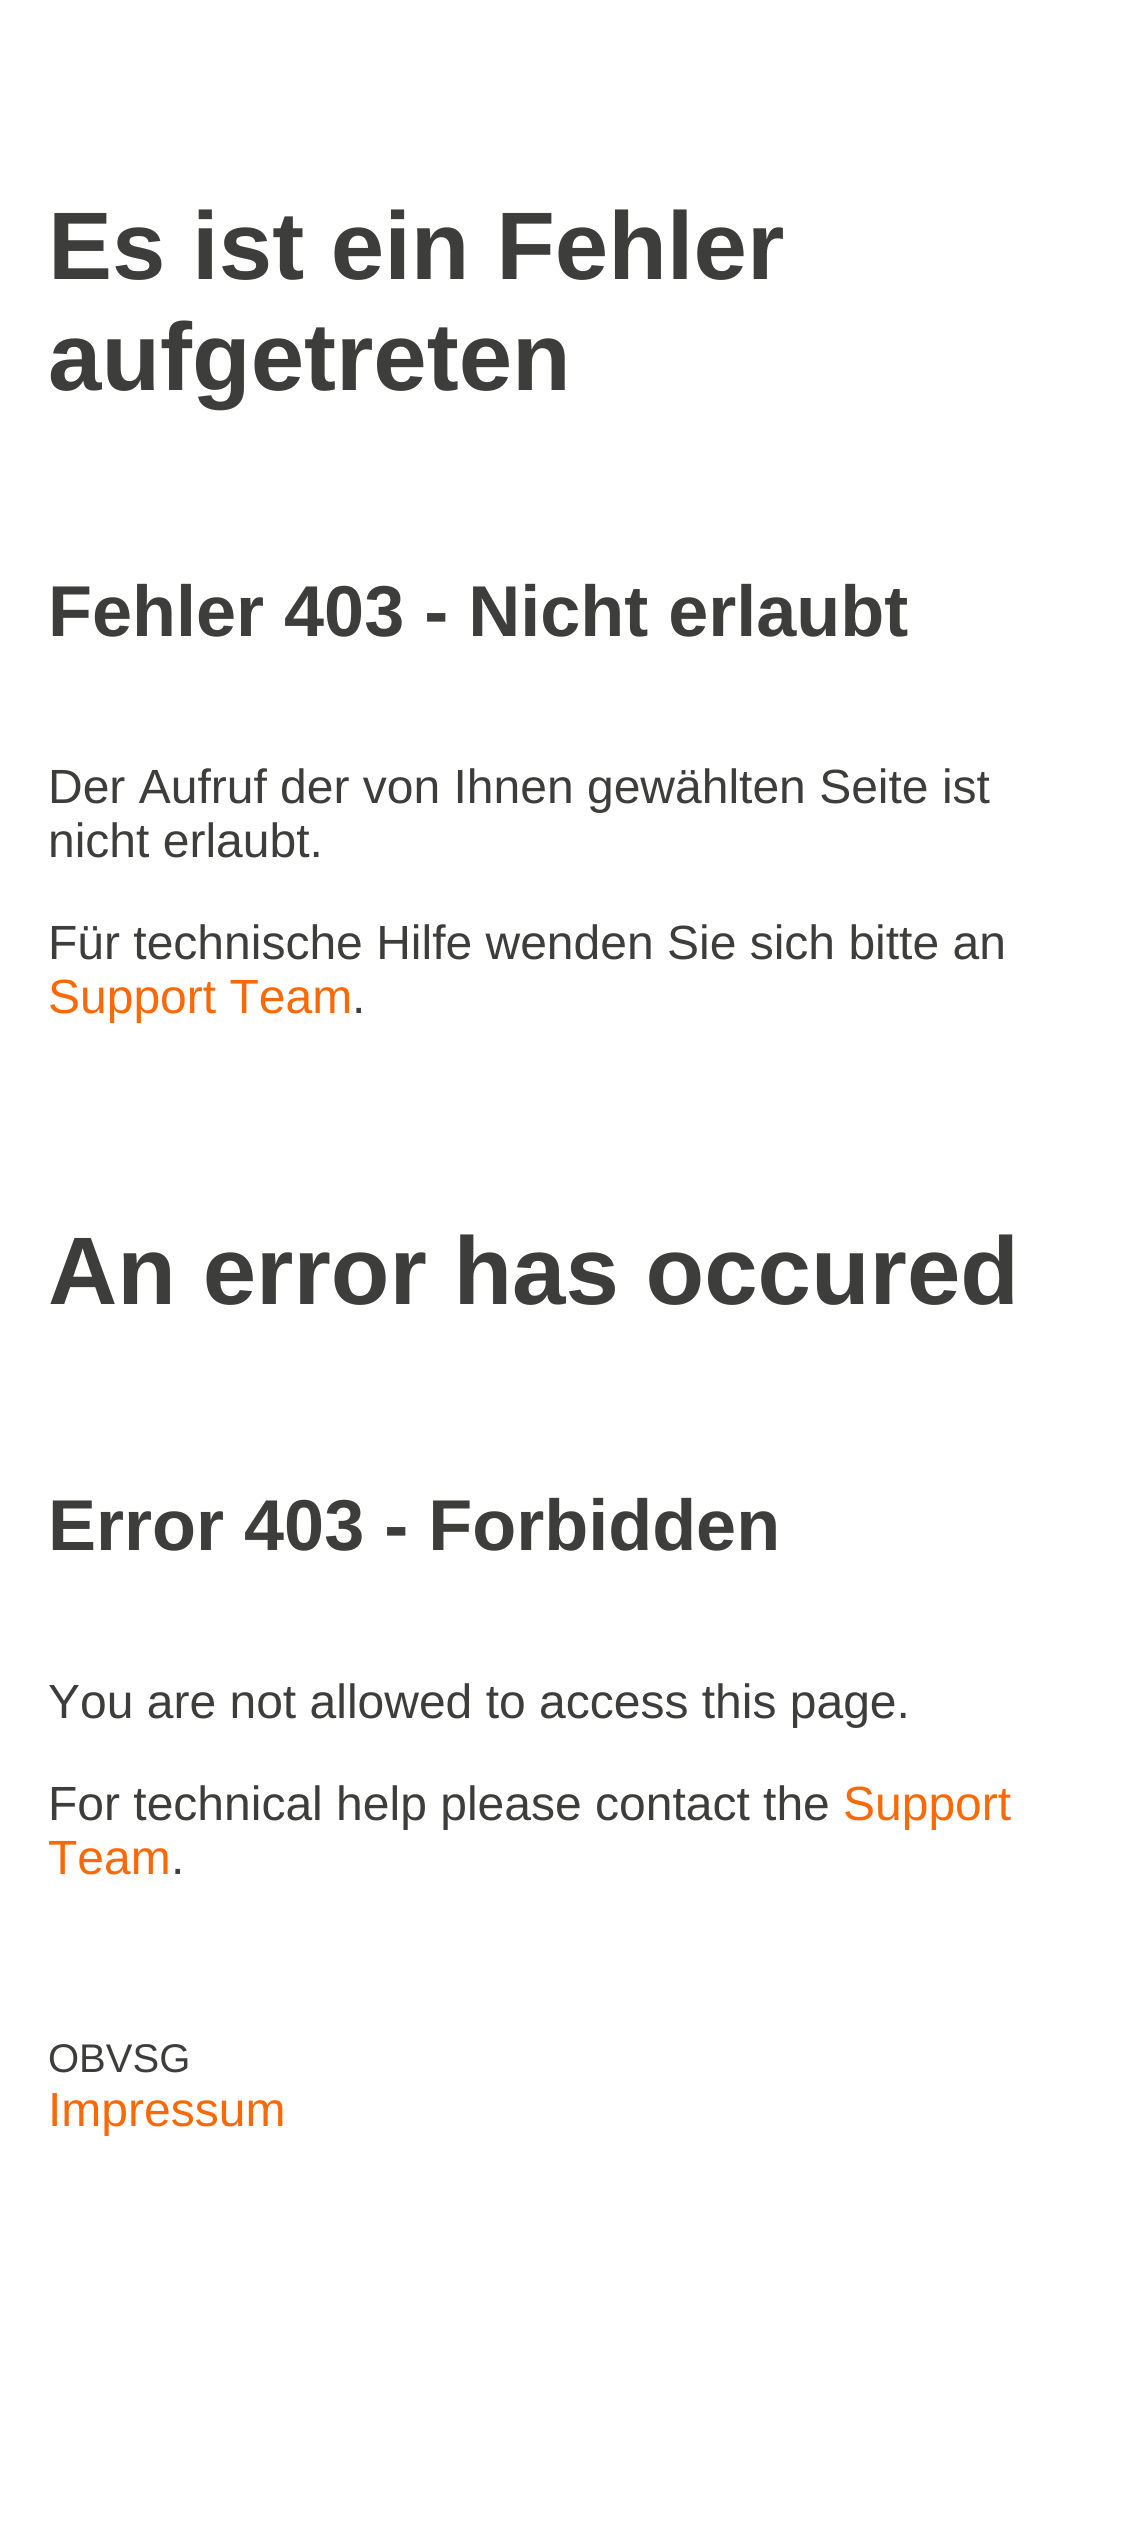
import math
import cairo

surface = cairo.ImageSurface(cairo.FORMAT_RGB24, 1145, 2534)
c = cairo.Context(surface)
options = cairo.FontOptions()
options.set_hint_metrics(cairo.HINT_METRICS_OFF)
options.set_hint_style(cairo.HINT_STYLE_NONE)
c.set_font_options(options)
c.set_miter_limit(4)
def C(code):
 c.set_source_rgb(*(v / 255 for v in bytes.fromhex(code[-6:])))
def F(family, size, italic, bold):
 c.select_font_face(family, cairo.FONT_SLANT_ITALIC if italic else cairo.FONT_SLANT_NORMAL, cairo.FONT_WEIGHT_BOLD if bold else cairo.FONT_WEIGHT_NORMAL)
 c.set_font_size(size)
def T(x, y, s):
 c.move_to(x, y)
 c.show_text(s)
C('ffffff')
c.paint()
F('Liberation Sans',96,0,1)
C('3d3d3c')
T(48,279,'Es ist ein Fehler')
T(48,390,'aufgetreten')
F('Liberation Sans',72,0,1)
T(48,636,'Fehler 403 - Nicht erlaubt')
F('Liberation Sans',48,0,0)
T(48,803,'Der Aufruf der von Ihnen gewählten Seite ist')
T(48,857,'nicht erlaubt.')
T(48,959,'Für technische Hilfe wenden Sie sich bitte an')
C('fa6908')
T(48,1013,'Support Team')
C('3d3d3c')
T(352,1013,'.')
F('Liberation Sans',96,0,1)
T(48,1304,'An error has occured')
F('Liberation Sans',72,0,1)
T(48,1550,'Error 403 - Forbidden')
F('Liberation Sans',48,0,0)
T(48,1718,'You are not allowed to access this page.')
T(48,1820,'For technical help please contact the')
C('fa6908')
T(843,1820,'Support')
T(48,1874,'Team')
C('3d3d3c')
T(171,1874,'.')
F('Liberation Sans',40,0,0)
T(48,2072,'OBVSG')
F('Liberation Sans',48,0,0)
C('fa6908')
T(48,2126,'Impressum')
surface.write_to_png('o.png')
